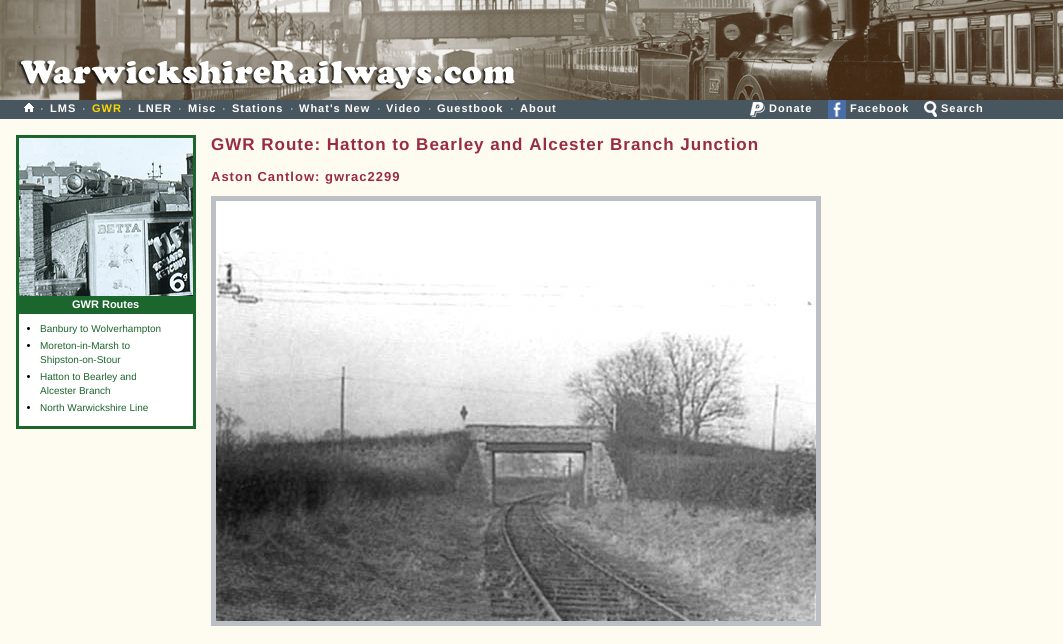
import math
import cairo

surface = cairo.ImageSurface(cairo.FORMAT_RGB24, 1063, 644)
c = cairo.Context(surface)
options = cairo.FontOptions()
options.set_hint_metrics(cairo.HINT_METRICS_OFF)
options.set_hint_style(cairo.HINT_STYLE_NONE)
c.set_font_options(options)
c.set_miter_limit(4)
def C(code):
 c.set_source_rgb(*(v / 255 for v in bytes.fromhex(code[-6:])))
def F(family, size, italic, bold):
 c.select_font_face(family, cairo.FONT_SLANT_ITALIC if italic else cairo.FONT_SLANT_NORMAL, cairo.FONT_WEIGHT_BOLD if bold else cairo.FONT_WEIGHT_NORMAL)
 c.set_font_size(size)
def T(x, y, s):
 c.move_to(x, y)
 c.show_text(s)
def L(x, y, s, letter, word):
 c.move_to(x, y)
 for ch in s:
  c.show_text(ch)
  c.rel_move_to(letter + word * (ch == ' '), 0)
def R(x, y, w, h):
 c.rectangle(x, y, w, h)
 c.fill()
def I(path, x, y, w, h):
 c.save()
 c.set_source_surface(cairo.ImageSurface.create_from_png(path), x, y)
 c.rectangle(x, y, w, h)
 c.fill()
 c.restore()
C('fefbf0')
c.paint()
I('1.png',0,0,1063,119)
I('2.png',24,103,10,9)
F('Liberation Sans',11,0,0)
C('ffffff')
T(40,112,'·')
F('Liberation Sans',11,0,1)
L(50,112,'LMS',1,0)
F('Liberation Sans',11,0,0)
T(82,112,'·')
F('Liberation Sans',11,0,1)
C('fed700')
L(92,112,'GWR',1,0)
F('Liberation Sans',11,0,0)
C('ffffff')
T(128,112,'·')
F('Liberation Sans',11,0,1)
L(138,112,'LNER',1,0)
F('Liberation Sans',11,0,0)
T(178,112,'·')
F('Liberation Sans',11,0,1)
L(188,112,'Misc',1,0)
F('Liberation Sans',11,0,0)
T(222,112,'·')
F('Liberation Sans',11,0,1)
L(232,112,'Stations',1,0)
F('Liberation Sans',11,0,0)
T(290,112,'·')
F('Liberation Sans',11,0,1)
L(299,112,'What\'s New',1,0)
F('Liberation Sans',11,0,0)
T(377,112,'·')
F('Liberation Sans',11,0,1)
L(386,112,'Video',1,0)
F('Liberation Sans',11,0,0)
T(428,112,'·')
F('Liberation Sans',11,0,1)
L(437,112,'Guestbook',1,0)
F('Liberation Sans',11,0,0)
T(510,112,'·')
F('Liberation Sans',11,0,1)
L(520,112,'About',1,0)
I('3.png',750,102,15,15)
L(769,112,'Donate',1,0)
I('4.png',828,100,18,19)
L(850,112,'Facebook',1,0)
I('5.png',924,101,13,16)
L(941,112,'Search',1,0)
F('Liberation Sans',17,0,1)
C('982b46')
L(211,150,'GWR Route: Hatton to Bearley and Alcester Branch Junction',1,0)
F('Liberation Sans',13,0,1)
L(211,181,'Aston Cantlow: gwrac2299',1,0)
C('bcbfc3')
R(211,196,610,430)
I('6.png',216,201,600,420)
C('1b662c')
R(16,135,180,176)
I('7.png',19,138,174,158)
F('Liberation Sans',11,0,1)
C('ffffff')
T(72,308,'GWR Routes')
c.rectangle(17.5,312.5,177,115)
c.fill_preserve()
C('1b662c')
c.set_line_width(3)
c.stroke()
C('000000')
c.arc(28.5,328.5,1.5,0,2 * math.pi)
c.fill()
F('Liberation Sans',10,0,0)
C('1b662c')
T(40,332,'Banbury to Wolverhampton')
C('000000')
c.new_path()
c.arc(28.5,345.5,1.5,0,2 * math.pi)
c.fill()
C('1b662c')
T(40,349,'Moreton-in-Marsh to')
T(40,363,'Shipston-on-Stour')
C('000000')
c.new_path()
c.arc(28.5,376.5,1.5,0,2 * math.pi)
c.fill()
C('1b662c')
T(40,380,'Hatton to Bearley and')
T(40,394,'Alcester Branch')
C('000000')
c.new_path()
c.arc(28.5,407.5,1.5,0,2 * math.pi)
c.fill()
C('1b662c')
T(40,411,'North Warwickshire Line')
surface.write_to_png('o.png')
